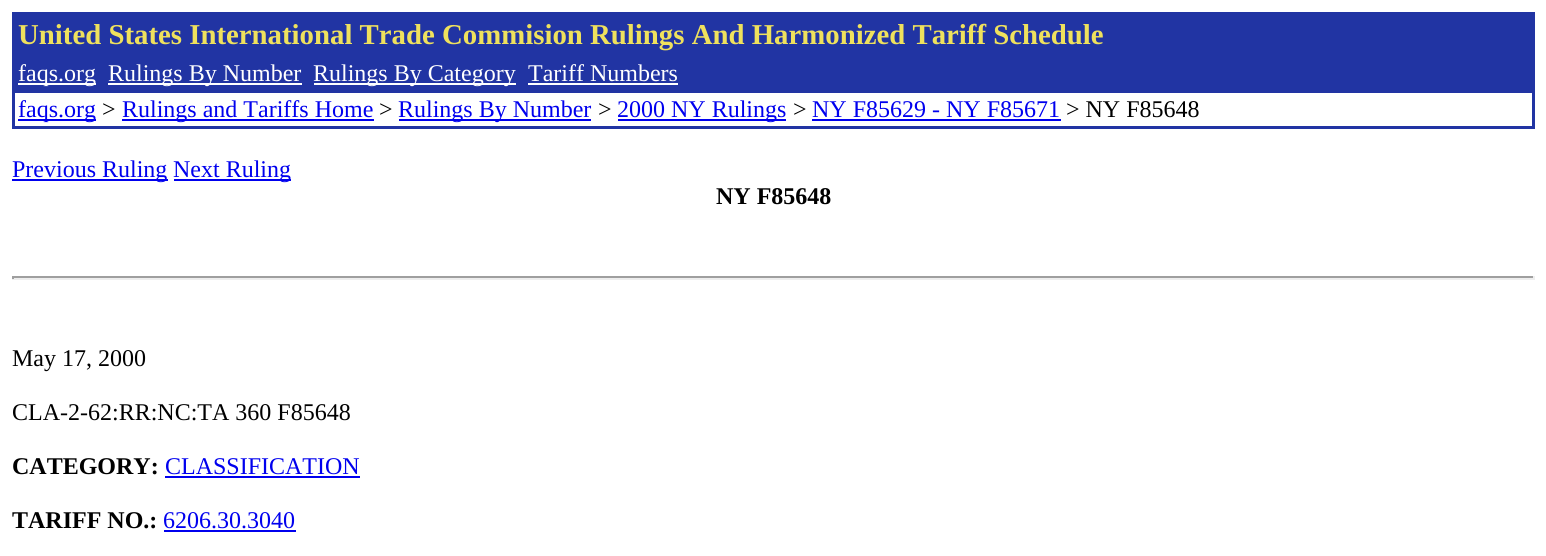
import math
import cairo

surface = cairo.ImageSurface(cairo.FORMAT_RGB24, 1546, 556)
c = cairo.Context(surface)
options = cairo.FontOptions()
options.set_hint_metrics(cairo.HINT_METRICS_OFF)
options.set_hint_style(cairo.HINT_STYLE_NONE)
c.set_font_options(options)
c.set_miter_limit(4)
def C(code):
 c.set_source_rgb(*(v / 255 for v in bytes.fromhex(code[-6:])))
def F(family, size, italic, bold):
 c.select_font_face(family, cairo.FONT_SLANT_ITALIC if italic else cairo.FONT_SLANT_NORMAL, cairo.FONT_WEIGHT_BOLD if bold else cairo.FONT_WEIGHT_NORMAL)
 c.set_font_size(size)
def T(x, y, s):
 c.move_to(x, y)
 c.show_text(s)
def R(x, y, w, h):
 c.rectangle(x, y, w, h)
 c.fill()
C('ffffff')
c.paint()
C('2134a3')
R(12,12,1523,117)
F('Liberation Serif',28.8,0,1)
C('efe15d')
T(18,44,'United States International Trade Commision Rulings And Harmonized Tariff Schedule')
C('ffffff')
R(18,83,78,2)
F('Liberation Serif',24,0,0)
T(18,81,'faqs.org')
R(108,83,194,2)
T(108,81,'Rulings By Number')
R(314,83,202,2)
T(313,81,'Rulings By Category')
T(528,81,'Tariff Numbers')
R(528,83,150,2)
R(15,93,1517,33)
C('0000ee')
R(18,119,78,2)
T(18,117,'faqs.org')
C('000000')
T(102,117,'>')
C('0000ee')
R(122,119,252,2)
T(122,117,'Rulings and Tariffs Home')
C('000000')
T(379,117,'>')
C('0000ee')
R(399,119,192,2)
T(398,117,'Rulings By Number')
C('000000')
T(598,117,'>')
C('0000ee')
R(618,119,168,2)
T(617,117,'2000 NY Rulings')
C('000000')
T(793,117,'>')
C('0000ee')
T(812,117,'NY F85629 - NY F85671')
R(812,119,249,2)
C('000000')
T(1066,117,'> NY F85648')
C('0000ee')
R(12,179,156,2)
T(12,177,'Previous Ruling')
R(174,179,117,2)
T(173,177,'Next Ruling')
F('Liberation Serif',24,0,1)
C('000000')
T(716,204,'NY F85648')
C('9f9f9f')
R(12,276,1523,2)
C('eeeeee')
R(1533,276,2,3)
R(12,278,1523,2)
C('9f9f9f')
R(12,276,2,3)
F('Liberation Serif',24,0,0)
C('000000')
T(12,366,'May 17, 2000')
T(12,420,'CLA-2-62:RR:NC:TA 360 F85648')
F('Liberation Serif',24,0,1)
T(12,474,'CATEGORY:')
F('Liberation Serif',24,0,0)
C('0000ee')
T(165,474,'CLASSIFICATION')
R(165,476,195,2)
F('Liberation Serif',24,0,1)
C('000000')
T(12,528,'TARIFF NO.:')
F('Liberation Serif',24,0,0)
C('0000ee')
T(163,528,'6206.30.3040')
R(164,530,132,2)
surface.write_to_png('o.png')
